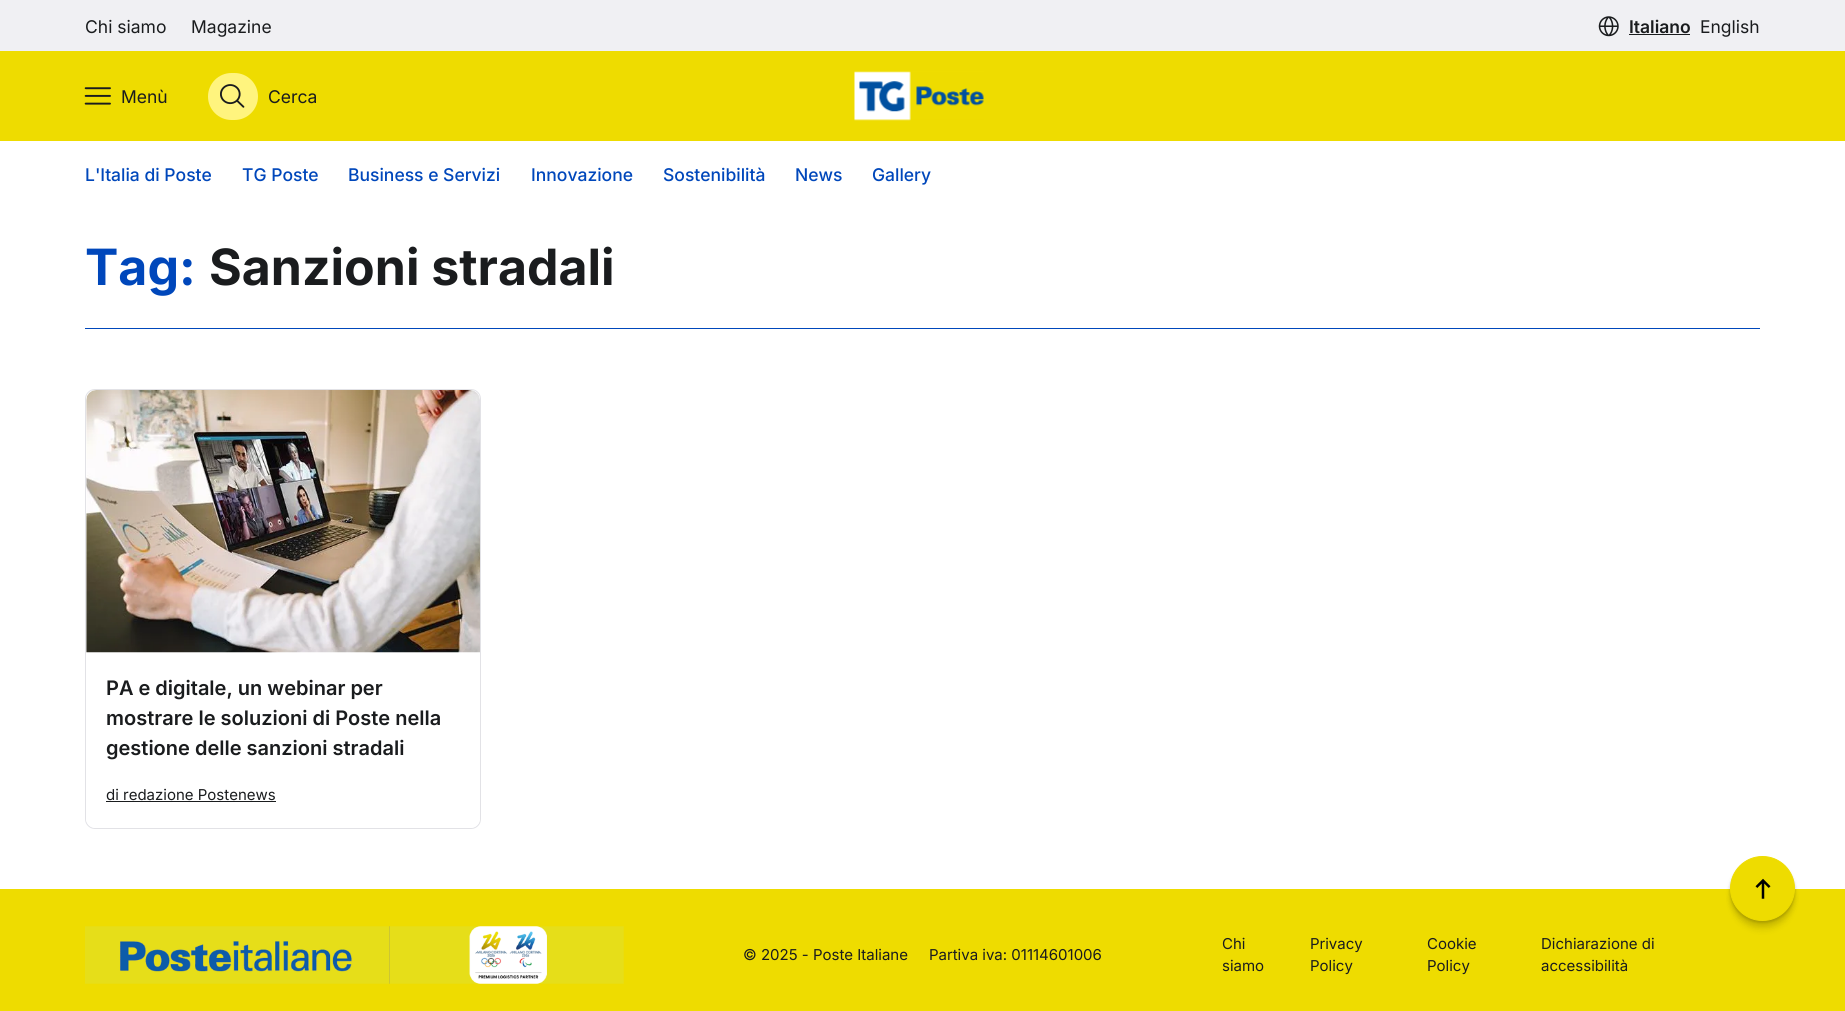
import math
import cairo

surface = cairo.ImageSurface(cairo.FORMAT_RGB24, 1845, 1011)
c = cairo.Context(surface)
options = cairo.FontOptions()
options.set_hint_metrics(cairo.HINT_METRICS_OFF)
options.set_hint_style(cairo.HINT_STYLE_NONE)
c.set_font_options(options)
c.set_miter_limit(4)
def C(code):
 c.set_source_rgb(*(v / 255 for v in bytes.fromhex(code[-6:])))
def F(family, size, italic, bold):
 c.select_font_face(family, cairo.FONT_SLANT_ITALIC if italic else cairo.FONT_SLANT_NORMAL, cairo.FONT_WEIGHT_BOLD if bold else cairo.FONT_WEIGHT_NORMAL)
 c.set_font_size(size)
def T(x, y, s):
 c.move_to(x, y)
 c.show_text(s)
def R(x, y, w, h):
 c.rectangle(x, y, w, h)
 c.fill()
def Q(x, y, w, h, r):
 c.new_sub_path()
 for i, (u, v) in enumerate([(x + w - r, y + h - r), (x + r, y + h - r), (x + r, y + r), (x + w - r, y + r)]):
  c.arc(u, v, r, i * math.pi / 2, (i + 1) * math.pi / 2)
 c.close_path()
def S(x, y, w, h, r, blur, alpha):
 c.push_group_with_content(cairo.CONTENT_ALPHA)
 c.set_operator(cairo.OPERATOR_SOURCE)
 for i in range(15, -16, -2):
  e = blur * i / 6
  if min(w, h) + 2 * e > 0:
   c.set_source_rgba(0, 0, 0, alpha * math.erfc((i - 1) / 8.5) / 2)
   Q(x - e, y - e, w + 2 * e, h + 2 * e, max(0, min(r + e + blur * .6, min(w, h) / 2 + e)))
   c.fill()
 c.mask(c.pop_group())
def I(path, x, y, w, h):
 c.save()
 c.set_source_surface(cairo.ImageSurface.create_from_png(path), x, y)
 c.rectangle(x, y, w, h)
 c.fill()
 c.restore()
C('ffffff')
c.paint()
C('f0f0f3')
R(0,0,1845,51)
F('Inter',17.5,0,0)
C('1a1c1e')
T(85,33,'Chi siamo')
T(191,33,'Magazine')
I('1.png',1598,16,21,21)
F('Inter SemiBold',17.5,0,0)
T(1629,33,'Italiano')
R(1629,34,61,1)
F('Inter',17.5,0,0)
T(1700,33,'English')
C('eedc00')
R(0,51,1845,90)
I('2.png',84,87,27,18)
C('1a1c1e')
T(121,103,'Menù')
C('fff47e')
Q(208,73,50,47,23.5)
c.fill()
I('3.png',220,84,25,24)
C('1a1c1e')
T(268,103,'Cerca')
I('4.png',854,71,130,50)
F('Inter Medium',17.5,0,0)
C('0047bb')
T(85,181,'L\'Italia di Poste')
T(242,181,'TG Poste')
T(348,181,'Business e Servizi')
T(531,181,'Innovazione')
T(663,181,'Sostenibilità')
T(795,181,'News')
T(872,181,'Gallery')
F('Inter',50,0,1)
T(85,285,'Tag:')
C('1a1c1e')
T(209,285,'Sanzioni stradali')
C('0047bb')
R(85,328,1675,1)
Q(85.5,389.5,395,439,9.5)
C('e2e2e6')
c.set_line_width(1)
c.stroke()
I('5.png',86,390,394,263)
C('ffffff')
c.new_path()
c.move_to(86,653)
c.line_to(480,653)
c.line_to(480,818)
c.curve_to(480,823.5,475.5,828,470,828)
c.line_to(96,828)
c.curve_to(90.5,828,86,823.5,86,818)
c.close_path()
c.fill()
F('Inter SemiBold',20,0,0)
C('1a1c1e')
T(106,695,'PA e digitale, un webinar per')
T(106,725,'mostrare le soluzioni di Poste nella')
T(106,755,'gestione delle sanzioni stradali')
F('Inter',15,0,0)
T(106,800,'di redazione Postenews')
R(106,801,170,1)
C('eedc00')
R(0,889,1845,122)
C('000000')
S(1730,866,65,65,32.5,3,.07)
S(1730,861,65,65,32.5,2.5,.11)
S(1730,858,65,65,32.5,1,.13)
C('eedc00')
c.arc(1762.5,888.5,32,0,2 * math.pi)
c.fill_preserve()
c.stroke()
I('6.png',1755,878,16,21)
I('7.png',85,926,539,58)
C('1a1c1e')
T(743,960,'© 2025 - Poste Italiane     Partiva iva: 01114601006')
T(1222,949,'Chi')
T(1222,971,'siamo')
T(1310,949,'Privacy')
T(1310,971,'Policy')
T(1427,949,'Cookie')
T(1427,971,'Policy')
T(1541,949,'Dichiarazione di')
T(1541,971,'accessibilità')
surface.write_to_png('o.png')
